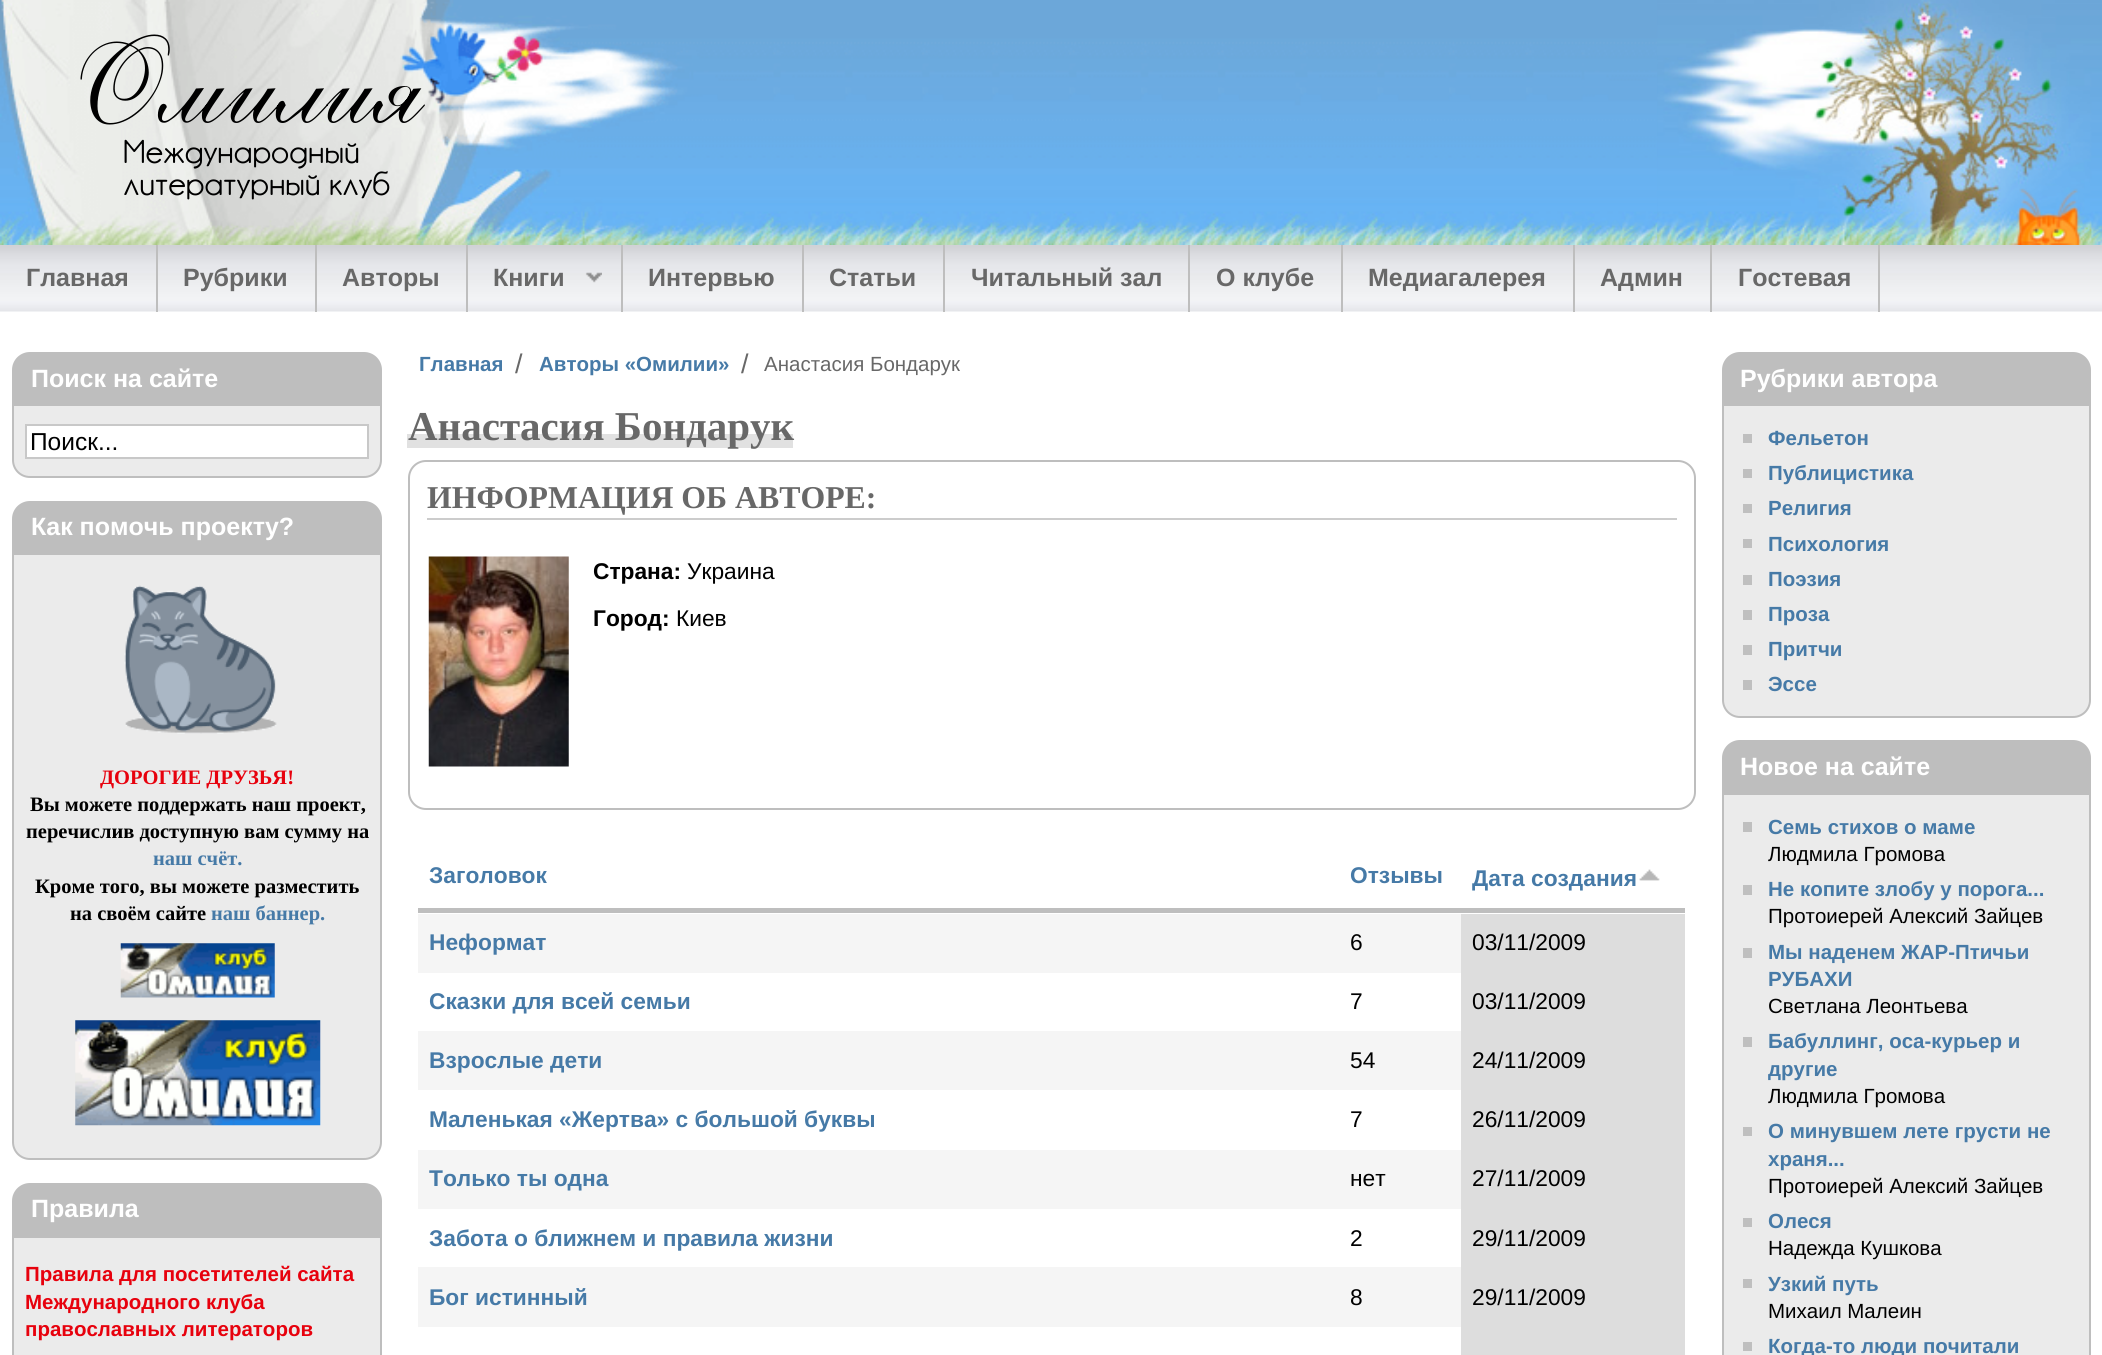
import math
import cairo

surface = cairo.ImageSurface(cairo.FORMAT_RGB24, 2102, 1355)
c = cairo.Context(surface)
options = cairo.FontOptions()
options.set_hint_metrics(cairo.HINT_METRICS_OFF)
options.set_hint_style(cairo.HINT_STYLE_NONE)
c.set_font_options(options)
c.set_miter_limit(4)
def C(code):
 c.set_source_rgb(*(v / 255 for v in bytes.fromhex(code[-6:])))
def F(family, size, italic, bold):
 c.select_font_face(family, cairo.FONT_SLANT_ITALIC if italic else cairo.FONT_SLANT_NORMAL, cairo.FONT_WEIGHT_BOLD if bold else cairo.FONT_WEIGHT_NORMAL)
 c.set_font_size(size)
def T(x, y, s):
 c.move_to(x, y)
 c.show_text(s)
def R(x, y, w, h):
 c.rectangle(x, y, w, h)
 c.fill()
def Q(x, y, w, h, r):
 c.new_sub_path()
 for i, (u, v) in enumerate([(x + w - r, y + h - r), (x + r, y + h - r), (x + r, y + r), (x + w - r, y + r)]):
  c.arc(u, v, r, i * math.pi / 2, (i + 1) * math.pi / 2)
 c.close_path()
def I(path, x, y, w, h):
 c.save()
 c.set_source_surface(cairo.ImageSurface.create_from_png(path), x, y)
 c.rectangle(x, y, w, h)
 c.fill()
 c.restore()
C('ffffff')
c.paint()
I('1.png',0,0,1658,245)
F('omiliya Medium',125,0,0)
C('000000')
T(61,123,'Омилия')
F('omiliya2',31.8,0,0)
T(123,163,'Международный')
T(123,195,'литературный')
T(329,195,'клуб')
I('2.png',1657,0,445,245)
I('3.png',0,245,2102,67)
C('bebebe')
R(156,245,2,67)
F('Liberation Sans',25,0,1)
C('686868')
T(26,286,'Главная')
C('bebebe')
R(315,245,2,67)
C('686868')
T(183,286,'Рубрики')
C('bebebe')
R(466,245,2,67)
C('686868')
T(342,286,'Авторы')
C('bebebe')
R(621,245,2,67)
C('686868')
T(493,286,'Книги')
I('4.png',585,272,17,11)
C('bebebe')
R(802,245,2,67)
C('686868')
T(648,286,'Интервью')
C('bebebe')
R(943,245,2,67)
C('686868')
T(829,286,'Статьи')
C('bebebe')
R(1188,245,2,67)
C('686868')
T(971,286,'Читальный зал')
C('bebebe')
R(1341,245,2,67)
C('686868')
T(1216,286,'О клубе')
C('bebebe')
R(1573,245,2,67)
C('686868')
T(1368,286,'Медиагалерея')
C('bebebe')
R(1710,245,2,67)
C('686868')
T(1600,286,'Админ')
C('bebebe')
R(1878,245,2,67)
C('686868')
T(1738,286,'Гостевая')
C('bebebe')
c.new_path()
c.move_to(30,352)
c.line_to(364,352)
c.curve_to(374,352,382,360,382,370)
c.line_to(382,404)
c.line_to(12,404)
c.line_to(12,370)
c.curve_to(12,360,20,352,30,352)
c.close_path()
c.fill()
C('ffffff')
T(31,387,'Поиск на сайте')
C('ebebeb')
c.new_path()
c.move_to(13,405)
c.line_to(381,405)
c.line_to(381,460)
c.curve_to(381,469.5,373.5,477,364,477)
c.line_to(30,477)
c.curve_to(20.5,477,13,469.5,13,460)
c.close_path()
c.fill_preserve()
C('bebebe')
c.stroke()
C('ffffff')
c.rectangle(26,425,342,33)
c.fill_preserve()
C('c8c8c8')
c.stroke()
F('Liberation Sans',24.5,0,0)
C('000000')
T(30,450,'Поиск...')
C('bebebe')
c.new_path()
c.move_to(30,501)
c.line_to(364,501)
c.curve_to(374,501,382,509,382,519)
c.line_to(382,553)
c.line_to(12,553)
c.line_to(12,519)
c.curve_to(12,509,20,501,30,501)
c.close_path()
c.fill()
F('Liberation Sans',25,0,1)
C('ffffff')
T(31,535,'Как помочь проекту?')
C('ebebeb')
c.new_path()
c.move_to(13,554)
c.line_to(381,554)
c.line_to(381,1142)
c.curve_to(381,1151.5,373.5,1159,364,1159)
c.line_to(30,1159)
c.curve_to(20.5,1159,13,1151.5,13,1142)
c.close_path()
c.fill_preserve()
C('bebebe')
c.stroke()
I('5.png',124,585,153,149)
F('Liberation Serif',20.5,0,1)
C('e7010d')
T(100,784,'ДОРОГИЕ ДРУЗЬЯ!')
C('000000')
T(30,811,'Вы можете поддержать наш проект,')
T(26,838,'перечислив доступную вам сумму на')
C('467aa7')
T(153,865,'наш счёт.')
C('000000')
T(35,893,'Кроме того, вы можете разместить')
T(70,920,'на своём сайте')
C('467aa7')
T(211,920,'наш баннер.')
I('6.png',120,943,155,55)
I('7.png',75,1020,246,106)
C('bebebe')
c.new_path()
c.move_to(30,1183)
c.line_to(364,1183)
c.curve_to(374,1183,382,1191,382,1201)
c.line_to(382,1236)
c.line_to(12,1236)
c.line_to(12,1201)
c.curve_to(12,1191,20,1183,30,1183)
c.close_path()
c.fill()
F('Liberation Sans',25,0,1)
C('ffffff')
T(31,1217,'Правила')
C('ebebeb')
c.rectangle(13,1237,368,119)
c.fill_preserve()
C('bebebe')
c.stroke()
F('Liberation Sans',20.5,0,1)
C('e7010d')
T(25,1281,'Правила для посетителей сайта')
T(25,1309,'Международного клуба')
T(25,1336,'православных литераторов')
C('467aa7')
T(419,371,'Главная')
F('Liberation Sans',27,0,0)
C('686868')
T(515,373,'/')
F('Liberation Sans',20.5,0,1)
C('467aa7')
T(539,371,'Авторы «Омилии»')
F('Liberation Sans',27,0,0)
C('686868')
T(741,373,'/')
F('Liberation Sans',20.5,0,0)
T(764,371,'Анастасия Бондарук')
C('e1e1e1')
R(407,434,386,14)
F('Liberation Serif',41,0,1)
C('686868')
T(408,440,'Анастасия Бондарук')
Q(409,461,1286,348,17)
C('bebebe')
c.stroke()
C('cccccc')
R(427,518,1250,2)
F('Liberation Serif',31.8,0,1)
C('686868')
T(427,508,'ИНФОРМАЦИЯ ОБ АВТОРЕ:')
I('8.png',428,556,141,211)
F('Liberation Sans',22.75,0,1)
C('000000')
T(593,579,'Страна:')
F('Liberation Sans',22.75,0,0)
T(687,579,'Украина')
F('Liberation Sans',22.75,0,1)
T(593,626,'Город:')
F('Liberation Sans',22.75,0,0)
T(676,626,'Киев')
C('bebebe')
R(418,908,1267,5)
F('Liberation Sans',22.75,0,1)
C('467aa7')
T(429,883,'Заголовок')
T(1350,883,'Отзывы')
T(1472,886,'Дата создания')
I('9.png',1639,869,21,12)
C('f5f5f5')
R(418,914,1043,59)
C('467aa7')
T(429,950,'Неформат')
F('Liberation Sans',22.75,0,0)
C('000000')
T(1350,950,'6')
C('dddddd')
R(1461,914,224,441)
C('000000')
T(1472,950,'03/11/2009')
F('Liberation Sans',22.75,0,1)
C('467aa7')
T(429,1009,'Сказки для всей семьи')
F('Liberation Sans',22.75,0,0)
C('000000')
T(1350,1009,'7')
T(1472,1009,'03/11/2009')
C('f5f5f5')
R(418,1031,1043,59)
F('Liberation Sans',22.75,0,1)
C('467aa7')
T(429,1068,'Взрослые дети')
F('Liberation Sans',22.75,0,0)
C('000000')
T(1350,1068,'54')
T(1472,1068,'24/11/2009')
F('Liberation Sans',22.75,0,1)
C('467aa7')
T(429,1127,'Маленькая «Жертва» с большой буквы')
F('Liberation Sans',22.75,0,0)
C('000000')
T(1350,1127,'7')
T(1472,1127,'26/11/2009')
C('f5f5f5')
R(418,1150,1043,59)
F('Liberation Sans',22.75,0,1)
C('467aa7')
T(429,1186,'Только ты одна')
F('Liberation Sans',22.75,0,0)
C('000000')
T(1350,1186,'нет')
T(1472,1186,'27/11/2009')
F('Liberation Sans',22.75,0,1)
C('467aa7')
T(429,1246,'Забота о ближнем и правила жизни')
F('Liberation Sans',22.75,0,0)
C('000000')
T(1350,1246,'2')
T(1472,1246,'29/11/2009')
C('f5f5f5')
R(418,1267,1043,60)
F('Liberation Sans',22.75,0,1)
C('467aa7')
T(429,1305,'Бог истинный')
F('Liberation Sans',22.75,0,0)
C('000000')
T(1350,1305,'8')
T(1472,1305,'29/11/2009')
C('bebebe')
c.new_path()
c.move_to(1740,352)
c.line_to(2073,352)
c.curve_to(2083,352,2091,360,2091,370)
c.line_to(2091,404)
c.line_to(1722,404)
c.line_to(1722,370)
c.curve_to(1722,360,1730,352,1740,352)
c.close_path()
c.fill()
F('Liberation Sans',25,0,1)
C('ffffff')
T(1740,387,'Рубрики автора')
C('ebebeb')
c.new_path()
c.move_to(1723,405)
c.line_to(2090,405)
c.line_to(2090,700)
c.curve_to(2090,709.5,2082.5,717,2073,717)
c.line_to(1740,717)
c.curve_to(1730.5,717,1723,709.5,1723,700)
c.close_path()
c.fill_preserve()
C('bebebe')
c.stroke()
C('bfbfbf')
R(1743,434,9,9)
F('Liberation Sans',20.5,0,1)
C('467aa7')
T(1768,445,'Фельетон')
C('bfbfbf')
R(1743,469,9,9)
C('467aa7')
T(1768,480,'Публицистика')
C('bfbfbf')
R(1743,504,9,9)
C('467aa7')
T(1768,515,'Религия')
C('bfbfbf')
R(1743,539,9,9)
C('467aa7')
T(1768,551,'Психология')
C('bfbfbf')
R(1743,575,9,10)
C('467aa7')
T(1768,586,'Поэзия')
C('bfbfbf')
R(1743,610,9,10)
C('467aa7')
T(1768,621,'Проза')
C('bfbfbf')
R(1743,645,9,10)
C('467aa7')
T(1768,656,'Притчи')
C('bfbfbf')
R(1743,680,9,10)
C('467aa7')
T(1768,691,'Эссе')
C('bebebe')
c.new_path()
c.move_to(1740,740)
c.line_to(2073,740)
c.curve_to(2083,740,2091,748,2091,758)
c.line_to(2091,793)
c.line_to(1722,793)
c.line_to(1722,758)
c.curve_to(1722,748,1730,740,1740,740)
c.close_path()
c.fill()
F('Liberation Sans',25,0,1)
C('ffffff')
T(1740,775,'Новое на сайте')
C('ebebeb')
c.rectangle(1723,794,367,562)
c.fill_preserve()
C('bebebe')
c.stroke()
C('bfbfbf')
R(1743,822,9,10)
F('Liberation Sans',20.5,0,1)
C('467aa7')
T(1768,834,'Семь стихов о маме')
F('Liberation Sans',20.5,0,0)
C('000000')
T(1768,861,'Людмила Громова')
C('bfbfbf')
R(1743,885,9,10)
F('Liberation Sans',20.5,0,1)
C('467aa7')
T(1768,896,'Не копите злобу у порога...')
F('Liberation Sans',20.5,0,0)
C('000000')
T(1768,923,'Протоиерей Алексий Зайцев')
C('bfbfbf')
R(1743,948,9,10)
F('Liberation Sans',20.5,0,1)
C('467aa7')
T(1768,959,'Мы наденем ЖАР-Птичьи')
T(1768,986,'РУБАХИ')
F('Liberation Sans',20.5,0,0)
C('000000')
T(1768,1013,'Светлана Леонтьева')
C('bfbfbf')
R(1743,1037,9,10)
F('Liberation Sans',20.5,0,1)
C('467aa7')
T(1768,1048,'Бабуллинг, оса-курьер и')
T(1768,1076,'другие')
F('Liberation Sans',20.5,0,0)
C('000000')
T(1768,1103,'Людмила Громова')
C('bfbfbf')
R(1743,1127,9,9)
F('Liberation Sans',20.5,0,1)
C('467aa7')
T(1768,1138,'О минувшем лете грусти не')
T(1768,1166,'храня...')
F('Liberation Sans',20.5,0,0)
C('000000')
T(1768,1193,'Протоиерей Алексий Зайцев')
C('bfbfbf')
R(1743,1218,9,9)
F('Liberation Sans',20.5,0,1)
C('467aa7')
T(1768,1228,'Олеся')
F('Liberation Sans',20.5,0,0)
C('000000')
T(1768,1255,'Надежда Кушкова')
C('bfbfbf')
R(1743,1279,9,9)
F('Liberation Sans',20.5,0,1)
C('467aa7')
T(1768,1291,'Узкий путь')
F('Liberation Sans',20.5,0,0)
C('000000')
T(1768,1318,'Михаил Малеин')
C('bfbfbf')
R(1743,1342,9,9)
F('Liberation Sans',20.5,0,1)
C('467aa7')
T(1768,1353,'Когда-то люди почитали')
surface.write_to_png('o.png')
